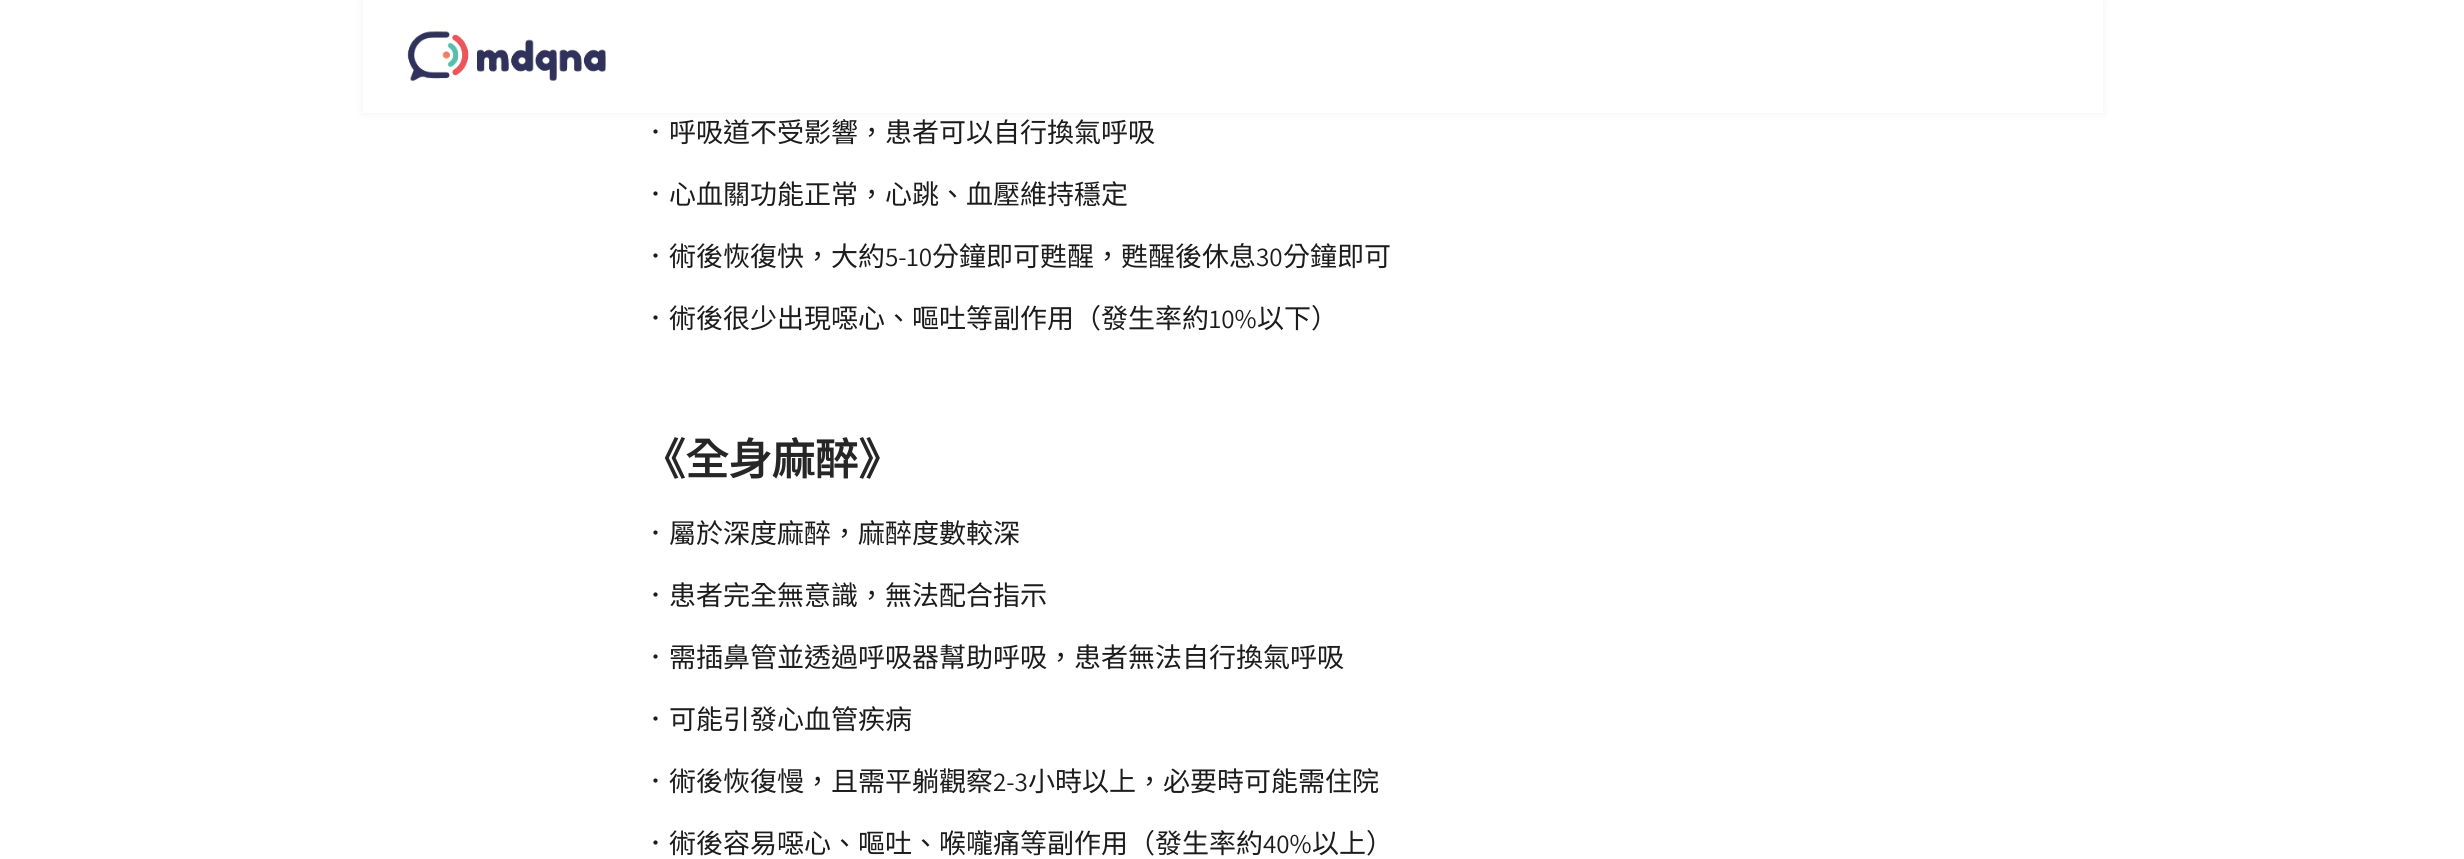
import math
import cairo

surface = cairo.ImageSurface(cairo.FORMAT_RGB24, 2464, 859)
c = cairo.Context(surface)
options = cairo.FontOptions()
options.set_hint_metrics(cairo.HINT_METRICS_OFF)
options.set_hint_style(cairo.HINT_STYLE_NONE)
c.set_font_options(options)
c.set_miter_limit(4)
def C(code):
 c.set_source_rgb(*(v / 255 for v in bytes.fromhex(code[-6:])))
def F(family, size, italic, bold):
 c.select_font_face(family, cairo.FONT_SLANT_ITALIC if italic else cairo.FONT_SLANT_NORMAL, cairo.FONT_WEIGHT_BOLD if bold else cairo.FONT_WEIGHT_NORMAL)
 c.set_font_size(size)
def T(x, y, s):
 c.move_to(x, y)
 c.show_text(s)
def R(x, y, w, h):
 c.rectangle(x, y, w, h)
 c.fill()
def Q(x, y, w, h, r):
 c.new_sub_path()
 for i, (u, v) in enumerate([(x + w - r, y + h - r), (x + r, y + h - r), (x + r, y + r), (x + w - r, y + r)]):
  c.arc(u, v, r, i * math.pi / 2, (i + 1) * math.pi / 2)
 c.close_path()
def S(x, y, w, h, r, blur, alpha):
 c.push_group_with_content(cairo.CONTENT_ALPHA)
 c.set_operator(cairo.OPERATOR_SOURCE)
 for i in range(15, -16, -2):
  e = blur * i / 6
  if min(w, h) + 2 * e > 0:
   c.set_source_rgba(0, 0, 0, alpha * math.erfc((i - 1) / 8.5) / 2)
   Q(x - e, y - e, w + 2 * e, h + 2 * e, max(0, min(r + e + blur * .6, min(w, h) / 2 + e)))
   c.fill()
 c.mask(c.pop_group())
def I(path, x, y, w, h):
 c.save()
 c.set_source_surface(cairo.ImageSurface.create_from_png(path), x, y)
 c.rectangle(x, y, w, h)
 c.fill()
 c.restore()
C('ffffff')
c.paint()
C('000000')
S(363,0,1740,113,0,4.5,.06)
C('ffffff')
R(363,0,1740,113)
I('1.png',407,31,199,51)
F('Noto Sans CJK TC',27,0,0)
C('1c1c1c')
T(642,142,'．呼吸道不受影響，患者可以自行換氣呼吸')
T(642,204,'．心血關功能正常，心跳、血壓維持穩定')
T(642,266,'．術後恢復快，大約')
F('Assistant',27,0,0)
T(885,266,'5-10')
F('Noto Sans CJK TC',27,0,0)
T(932,266,'分鐘即可甦醒，甦醒後休息')
F('Assistant',27,0,0)
T(1256,266,'30')
F('Noto Sans CJK TC',27,0,0)
T(1283,266,'分鐘即可')
T(642,328,'．術後很少出現噁心、嘔吐等副作用（發生率約')
F('Assistant',27,0,0)
T(1209,328,'10%')
F('Noto Sans CJK TC',27,0,0)
T(1257,328,'以下）')
F('Noto Sans CJK TC',43.25,0,1)
C('262626')
T(642,475,'《全身麻醉》')
F('Noto Sans CJK TC',27,0,0)
C('1c1c1c')
T(642,543,'．屬於深度麻醉，麻醉度數較深')
T(642,605,'．患者完全無意識，無法配合指示')
T(642,667,'．需插鼻管並透過呼吸器幫助呼吸，患者無法自行換氣呼吸')
T(642,729,'．可能引發心血管疾病')
T(642,791,'．術後恢復慢，且需平躺觀察')
F('Assistant',27,0,0)
T(993,791,'2-3')
F('Noto Sans CJK TC',27,0,0)
T(1028,791,'小時以上，必要時可能需住院')
T(642,853,'．術後容易噁心、嘔吐、喉嚨痛等副作用（發生率約')
F('Assistant',27,0,0)
T(1263,853,'40%')
F('Noto Sans CJK TC',27,0,0)
T(1312,853,'以上）')
surface.write_to_png('o.png')
